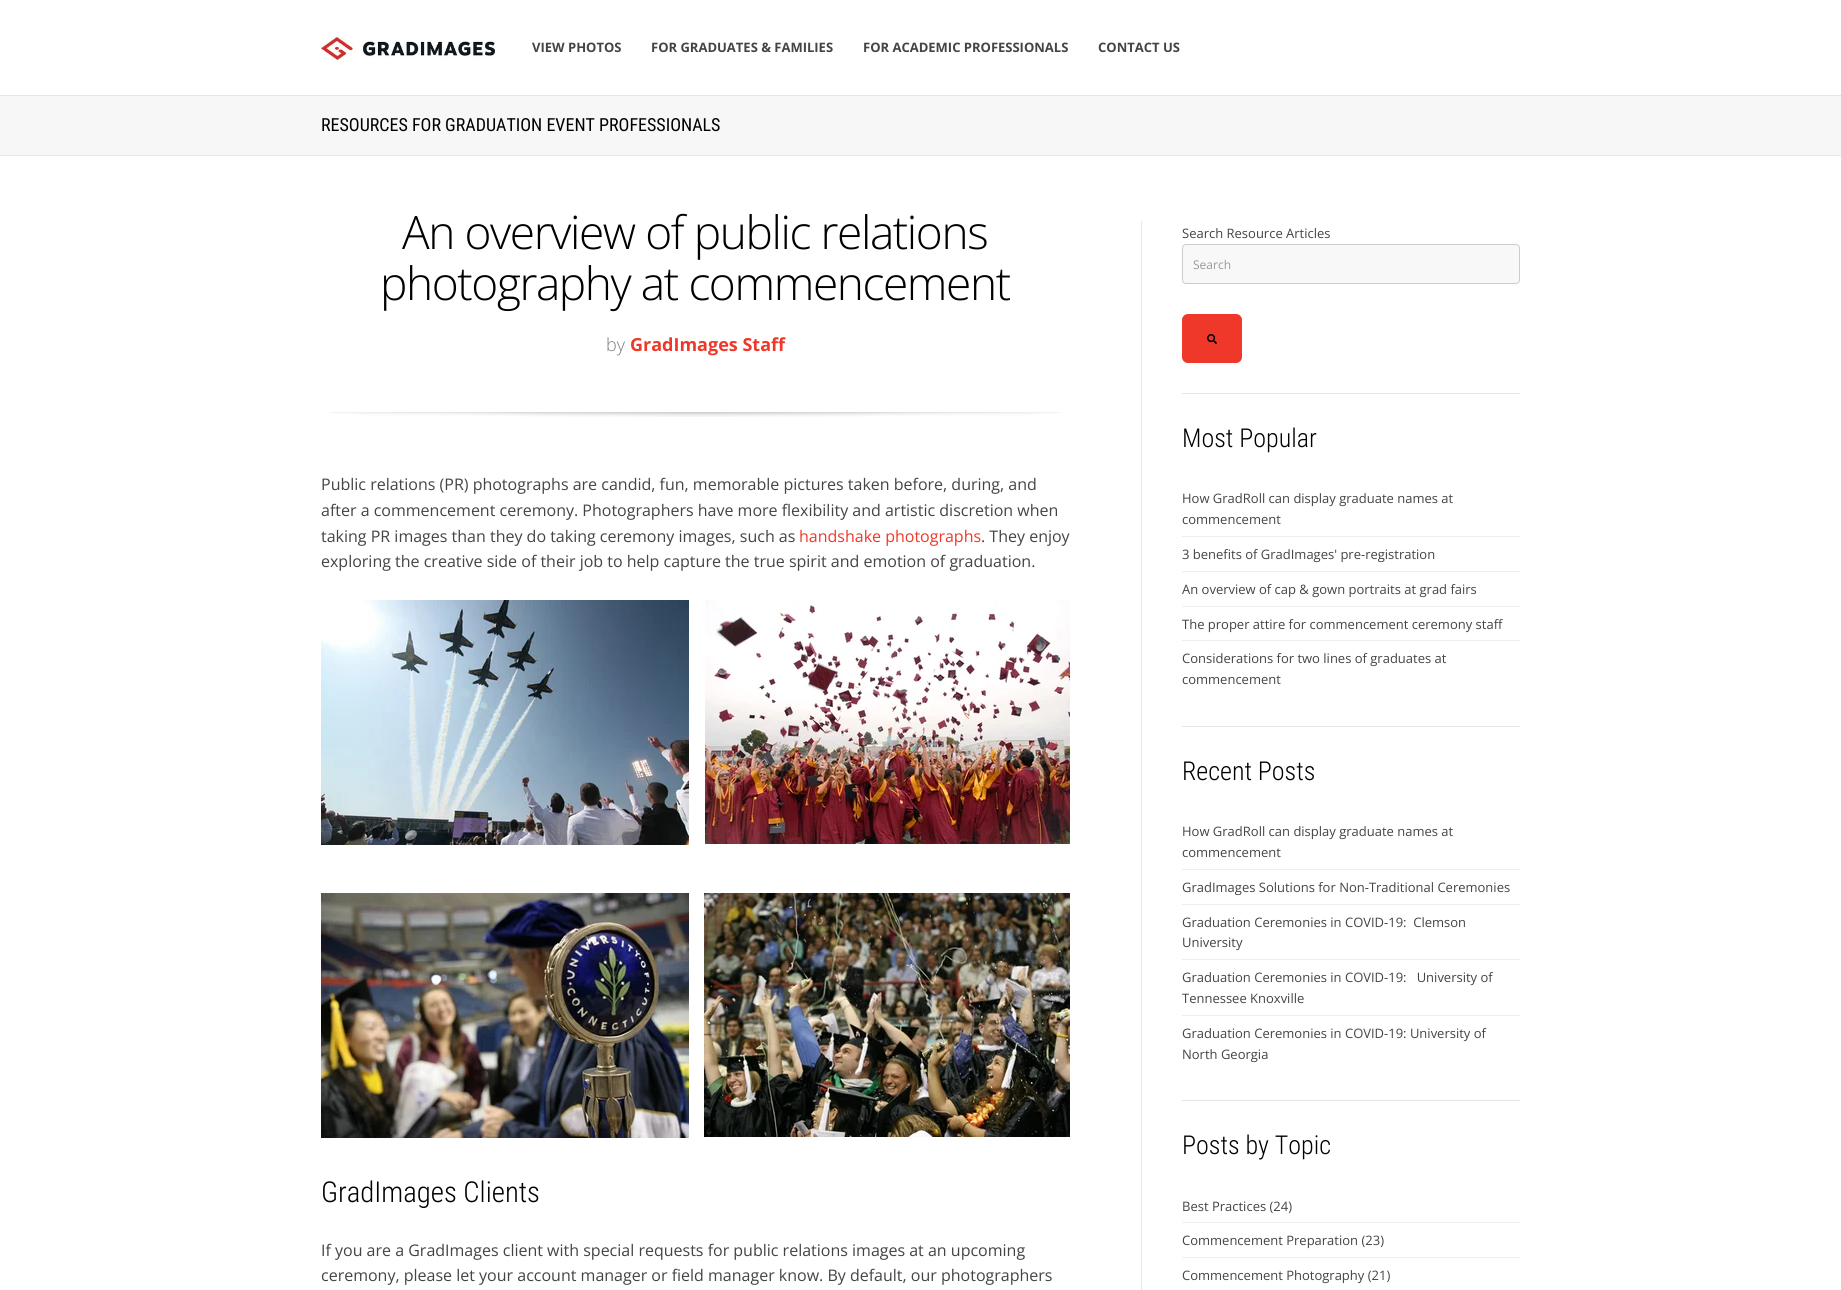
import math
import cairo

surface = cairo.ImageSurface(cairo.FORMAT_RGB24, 1841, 1290)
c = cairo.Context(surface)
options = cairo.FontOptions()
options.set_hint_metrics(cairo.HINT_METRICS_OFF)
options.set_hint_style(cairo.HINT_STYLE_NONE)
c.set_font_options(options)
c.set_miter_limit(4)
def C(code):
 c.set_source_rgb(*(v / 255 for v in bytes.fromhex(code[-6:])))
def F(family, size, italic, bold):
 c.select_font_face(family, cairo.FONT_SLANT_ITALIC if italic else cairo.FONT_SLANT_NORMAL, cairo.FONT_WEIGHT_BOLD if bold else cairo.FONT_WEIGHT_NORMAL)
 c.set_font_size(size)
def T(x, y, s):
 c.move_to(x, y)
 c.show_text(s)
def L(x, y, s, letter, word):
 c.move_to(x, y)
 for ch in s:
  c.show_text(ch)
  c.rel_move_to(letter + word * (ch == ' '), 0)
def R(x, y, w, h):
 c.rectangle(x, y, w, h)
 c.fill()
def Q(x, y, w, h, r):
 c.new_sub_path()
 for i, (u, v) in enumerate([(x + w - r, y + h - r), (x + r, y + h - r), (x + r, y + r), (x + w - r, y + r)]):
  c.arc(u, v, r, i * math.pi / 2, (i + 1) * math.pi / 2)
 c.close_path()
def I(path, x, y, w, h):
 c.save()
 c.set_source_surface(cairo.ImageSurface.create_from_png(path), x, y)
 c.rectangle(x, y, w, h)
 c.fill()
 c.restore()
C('ffffff')
c.paint()
I('1.png',321,37,174,23)
F('Open Sans',13,0,1)
C('444444')
T(532,52,'VIEW PHOTOS')
T(651,52,'FOR GRADUATES & FAMILIES')
T(863,52,'FOR ACADEMIC PROFESSIONALS')
T(1098,52,'CONTACT US')
C('e6e6e6')
R(0,95,1841,1)
C('f7f7f7')
R(0,96,1841,59)
C('e6e6e6')
R(0,155,1841,1)
F('Roboto Condensed',18,0,0)
C('000000')
T(321,131,'RESOURCES FOR GRADUATION EVENT PROFESSIONALS')
F('Open Sans Light',46,0,0)
L(402,249,'An overview of public relations',-1.4,0)
L(380,300,'photography at commencement',-1.4,0)
F('Open Sans Light',18,0,0)
C('7c7c7c')
T(606,351,'by')
F('Open Sans',18,0,1)
C('ef3829')
T(630,351,'GradImages Staff')
I('2.png',329,412,733,5)
F('Open Sans',16,0,0)
C('444444')
T(321,490,'Public relations (PR) photographs are candid, fun, memorable pictures taken before, during, and')
T(321,516,'after a commencement ceremony. Photographers have more flexibility and artistic discretion when')
T(321,542,'taking PR images than they do taking ceremony images, such as')
C('ef3829')
T(799,542,'handshake photographs')
C('444444')
T(981,542,'. They enjoy')
T(321,567,'exploring the creative side of their job to help capture the true spirit and emotion of graduation.')
I('3.png',321,600,368,245)
I('4.png',705,600,365,244)
I('5.png',321,893,368,245)
I('6.png',704,893,366,244)
F('Roboto Condensed Light',28.75,0,0)
C('000000')
T(321,1202,'GradImages Clients')
F('Open Sans',16,0,0)
C('444444')
T(321,1256,'If you are a GradImages client with special requests for public relations images at an upcoming')
T(321,1281,'ceremony, please let your account manager or field manager know. By default, our photographers')
C('e6e6e6')
R(1141,221,1,1069)
F('Open Sans',13,0,0)
C('444444')
T(1182,238,'Search Resource Articles')
C('f8f8f8')
Q(1182.5,244.5,337,39,3.5)
c.fill_preserve()
C('cccccc')
c.set_line_width(1)
c.stroke()
F('Open Sans',12,0,0)
C('999999')
T(1193,269,'Search')
C('ef3829')
Q(1182,314,60,49,6)
c.fill()
I('7.png',1207,334,10,10)
C('e6e6e6')
R(1182,393,338,1)
F('Roboto Condensed Light',26,0,0)
C('000000')
T(1182,447,'Most Popular')
C('eeeeee')
R(1182,536,338,1)
F('Open Sans',13,0,0)
C('444444')
T(1182,503,'How GradRoll can display graduate names at')
T(1182,524,'commencement')
C('eeeeee')
R(1182,571,338,1)
C('444444')
T(1182,559,'3 benefits of GradImages\' pre-registration')
C('eeeeee')
R(1182,606,338,1)
C('444444')
T(1182,594,'An overview of cap & gown portraits at grad fairs')
C('eeeeee')
R(1182,640,338,1)
C('444444')
T(1182,629,'The proper attire for commencement ceremony staff')
T(1182,663,'Considerations for two lines of graduates at')
T(1182,684,'commencement')
C('e6e6e6')
R(1182,726,338,1)
F('Roboto Condensed Light',26,0,0)
C('000000')
T(1182,780,'Recent Posts')
C('eeeeee')
R(1182,869,338,1)
F('Open Sans',13,0,0)
C('444444')
T(1182,836,'How GradRoll can display graduate names at')
T(1182,857,'commencement')
C('eeeeee')
R(1182,904,338,1)
C('444444')
T(1182,892,'GradImages Solutions for Non-Traditional Ceremonies')
C('eeeeee')
R(1182,959,338,1)
C('444444')
T(1182,927,'Graduation Ceremonies in COVID-19:  Clemson')
T(1182,947,'University')
C('eeeeee')
R(1182,1015,338,1)
C('444444')
T(1182,982,'Graduation Ceremonies in COVID-19:   University of')
T(1182,1003,'Tennessee Knoxville')
T(1182,1038,'Graduation Ceremonies in COVID-19: University of')
T(1182,1059,'North Georgia')
C('e6e6e6')
R(1182,1100,338,1)
F('Roboto Condensed Light',26,0,0)
C('000000')
T(1182,1154,'Posts by Topic')
C('eeeeee')
R(1182,1222,338,1)
F('Open Sans',13,0,0)
C('444444')
T(1182,1211,'Best Practices (24)')
C('eeeeee')
R(1182,1257,338,1)
C('444444')
T(1182,1245,'Commencement Preparation (23)')
T(1182,1280,'Commencement Photography (21)')
surface.write_to_png('o.png')
